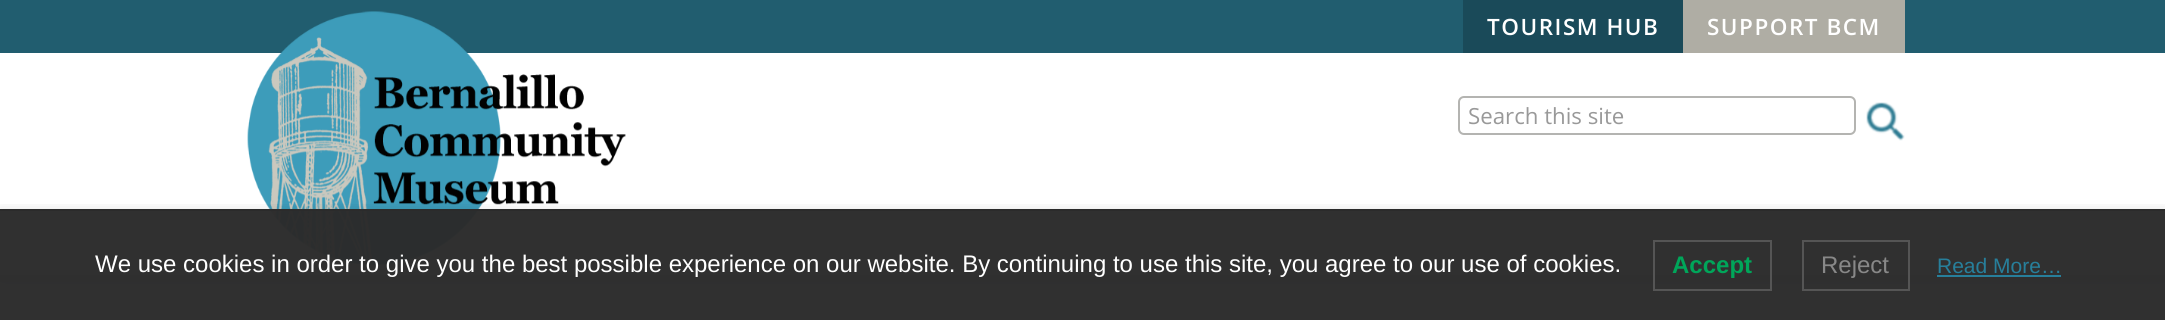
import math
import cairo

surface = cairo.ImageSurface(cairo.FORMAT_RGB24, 2165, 320)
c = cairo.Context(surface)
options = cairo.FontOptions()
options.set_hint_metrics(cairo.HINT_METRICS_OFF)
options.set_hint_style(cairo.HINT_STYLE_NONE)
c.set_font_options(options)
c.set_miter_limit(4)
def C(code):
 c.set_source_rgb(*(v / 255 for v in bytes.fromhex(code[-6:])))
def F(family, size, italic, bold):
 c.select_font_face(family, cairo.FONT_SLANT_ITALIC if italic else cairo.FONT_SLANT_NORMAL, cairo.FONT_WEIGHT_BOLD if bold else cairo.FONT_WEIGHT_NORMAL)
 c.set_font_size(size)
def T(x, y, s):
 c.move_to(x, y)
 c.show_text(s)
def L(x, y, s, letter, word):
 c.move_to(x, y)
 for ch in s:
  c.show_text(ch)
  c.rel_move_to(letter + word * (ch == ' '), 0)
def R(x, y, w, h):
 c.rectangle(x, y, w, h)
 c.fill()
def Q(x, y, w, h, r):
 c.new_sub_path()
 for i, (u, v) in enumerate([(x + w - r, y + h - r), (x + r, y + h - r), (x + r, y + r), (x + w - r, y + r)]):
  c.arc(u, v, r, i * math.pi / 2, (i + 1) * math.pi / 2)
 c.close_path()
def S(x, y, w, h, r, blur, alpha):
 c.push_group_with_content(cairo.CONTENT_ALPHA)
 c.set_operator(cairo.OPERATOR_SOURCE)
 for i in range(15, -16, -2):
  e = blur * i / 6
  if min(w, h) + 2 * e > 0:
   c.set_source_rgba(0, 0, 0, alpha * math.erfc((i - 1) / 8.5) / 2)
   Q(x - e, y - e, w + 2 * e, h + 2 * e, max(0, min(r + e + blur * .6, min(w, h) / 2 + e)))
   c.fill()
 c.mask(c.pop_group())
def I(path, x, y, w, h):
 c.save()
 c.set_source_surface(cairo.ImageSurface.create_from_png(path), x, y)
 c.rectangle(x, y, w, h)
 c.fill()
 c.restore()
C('ffffff')
c.paint()
C('0e1e25')
S(0,3,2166,275,0,12,.22)
S(0,3,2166,275,0,3,.12)
C('215d6f')
R(0,0,2165,53)
C('1a4a59')
R(1463,0,220,53)
F('Open Sans SemiBold',22.5,0,0)
C('ffffff')
L(1487,35,'TOURISM HUB',1.5,0)
C('afada4')
R(1683,0,222,53)
C('ffffff')
L(1707,35,'SUPPORT BCM',1.5,0)
R(0,53,2165,222)
I('1.png',247,11,379,254)
Q(1459,97,396,37,5)
C('b4b4b1')
c.stroke()
F('Open Sans',22.25,0,0)
C('999999')
T(1468,124,'Search this site')
I('2.png',1866,102,39,39)
c.save()
c.rectangle(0,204,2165,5)
c.clip()
C('000000')
S(0,209,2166,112,0,6,.1)
c.restore()
c.set_source_rgba(0.169,0.169,0.169,0.97)
R(0,211,2165,109)
C('2b2b2b')
R(0,209,2165,2)
F('Liberation Sans',24,0,0)
C('ffffff')
T(95,272,'We use cookies in order to give you the best possible experience on our website. By continuing to use this site, you agree to our use of cookies.')
c.rectangle(1654,241,117,49)
C('555555')
c.stroke()
F('Liberation Sans',24,0,1)
C('00a65a')
T(1672,273,'Accept')
c.rectangle(1803,241,106,49)
C('555555')
c.stroke()
F('Liberation Sans',24,0,0)
C('888888')
T(1821,273,'Reject')
F('Liberation Sans',21,0,0)
C('277f9b')
T(1937,273,'Read More…')
R(1937,275,124,2)
surface.write_to_png('o.png')
